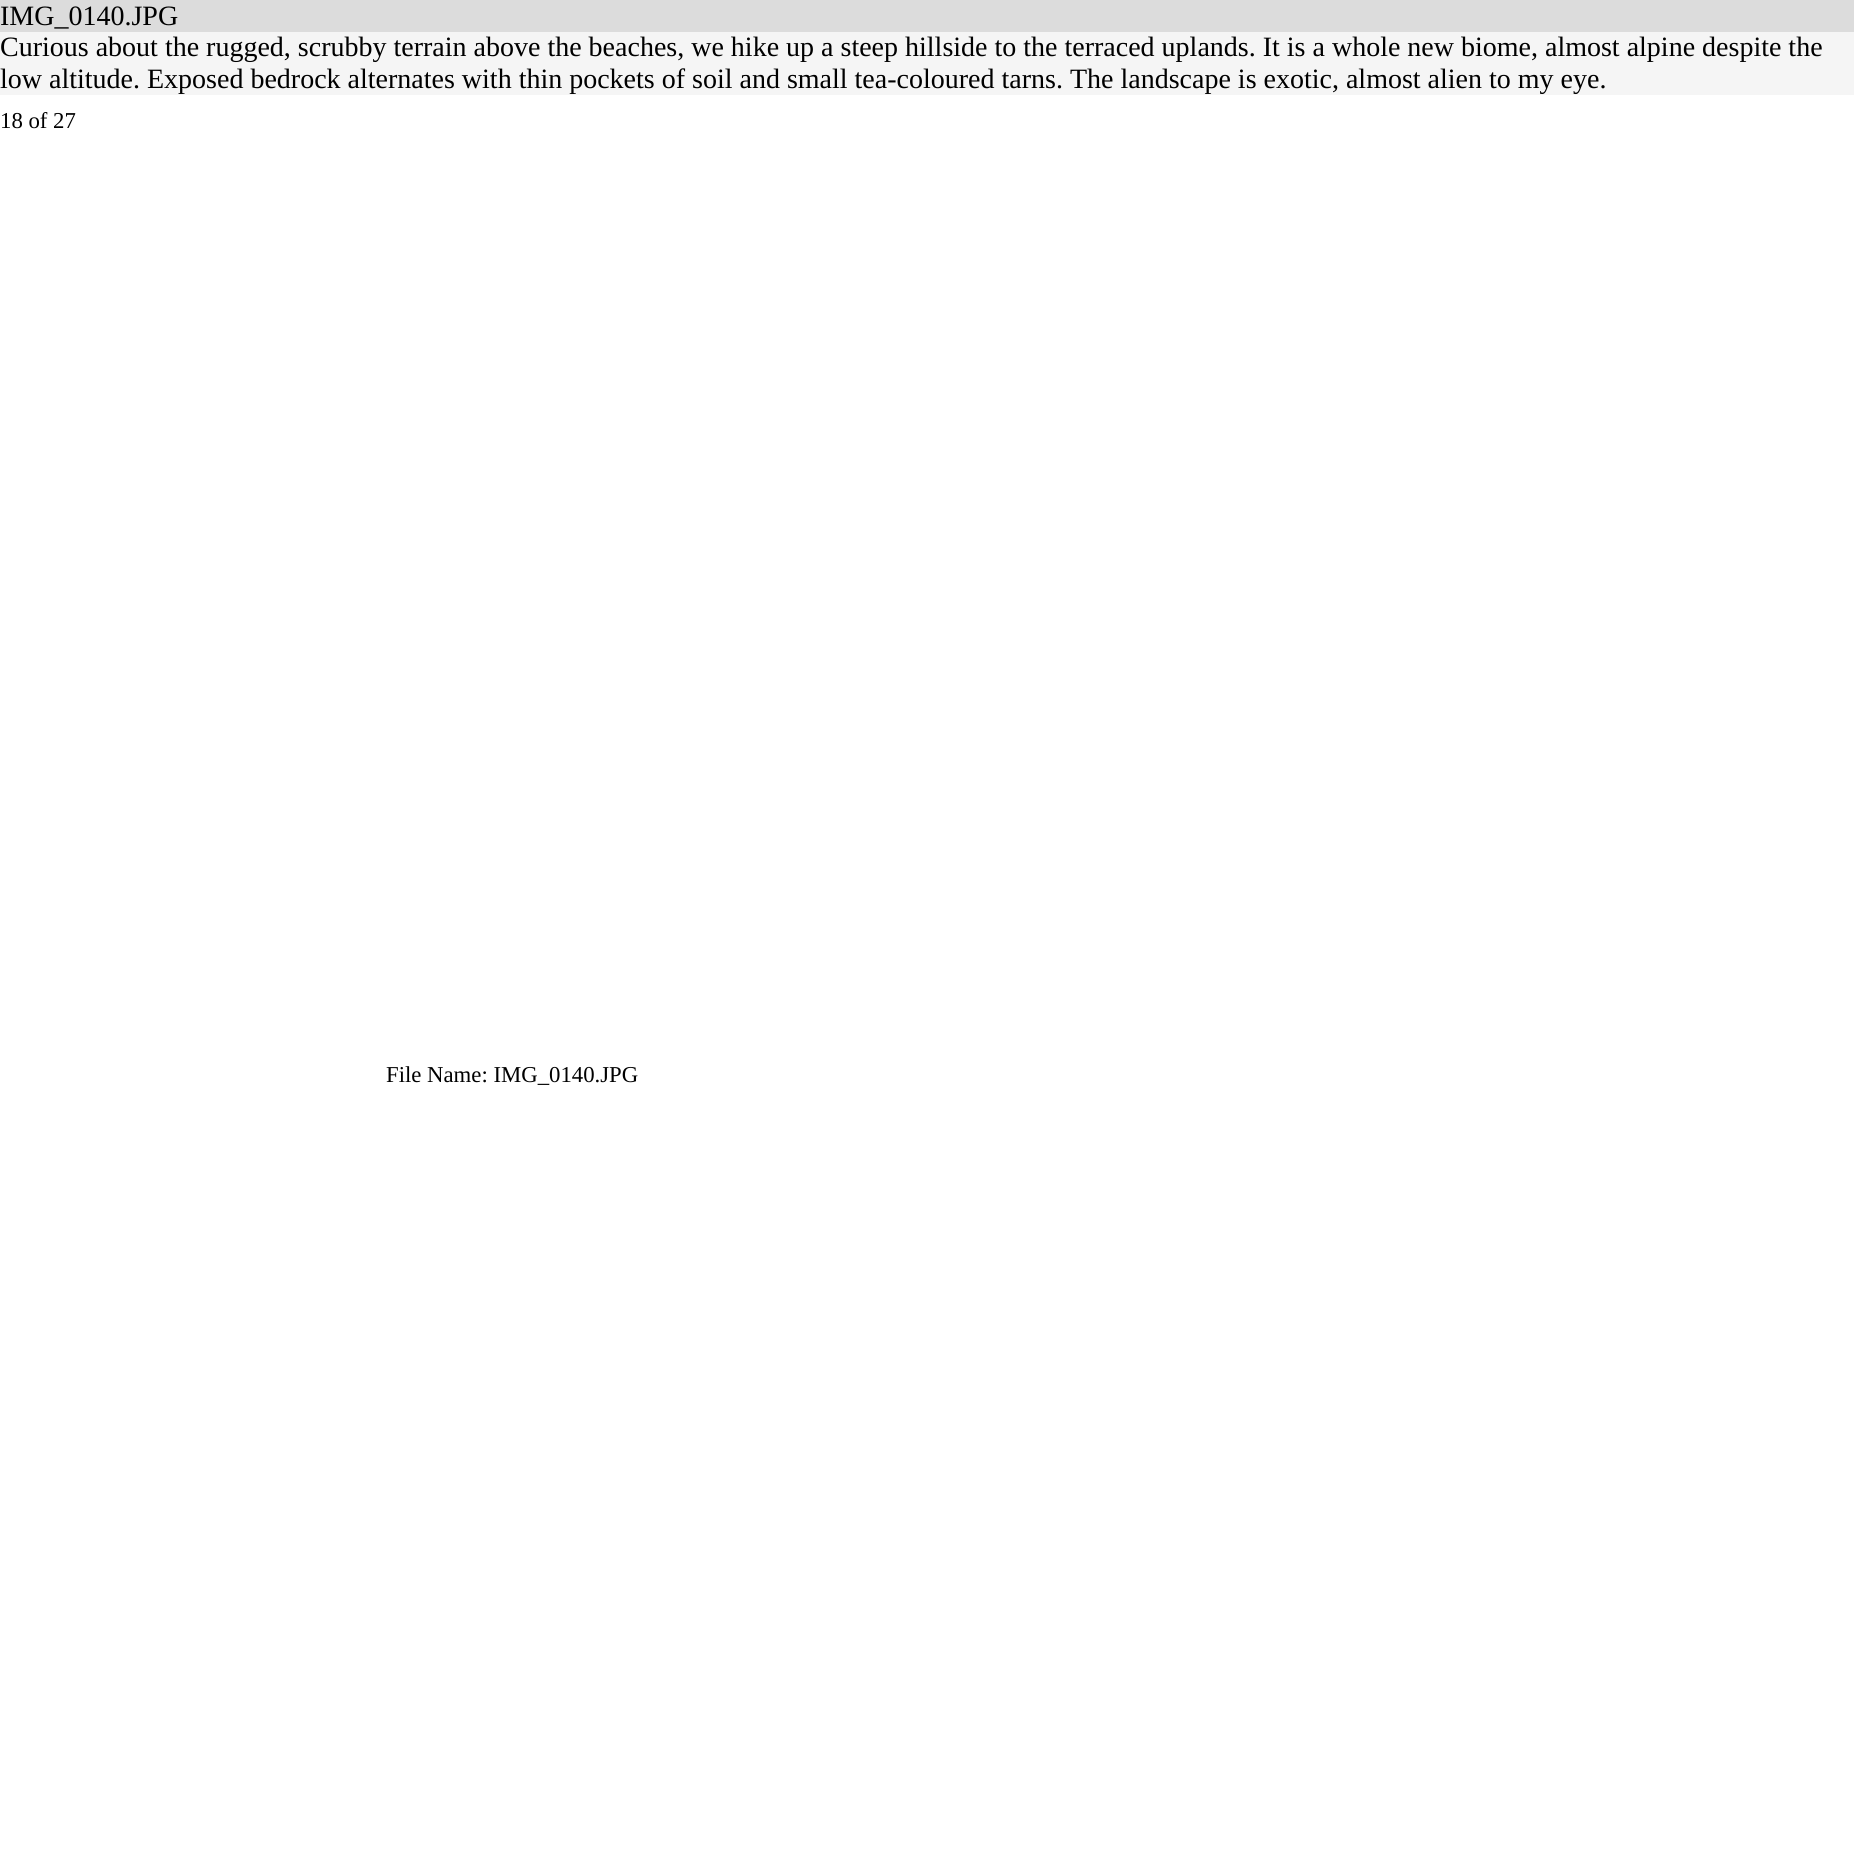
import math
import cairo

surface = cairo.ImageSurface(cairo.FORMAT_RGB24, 1854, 1871)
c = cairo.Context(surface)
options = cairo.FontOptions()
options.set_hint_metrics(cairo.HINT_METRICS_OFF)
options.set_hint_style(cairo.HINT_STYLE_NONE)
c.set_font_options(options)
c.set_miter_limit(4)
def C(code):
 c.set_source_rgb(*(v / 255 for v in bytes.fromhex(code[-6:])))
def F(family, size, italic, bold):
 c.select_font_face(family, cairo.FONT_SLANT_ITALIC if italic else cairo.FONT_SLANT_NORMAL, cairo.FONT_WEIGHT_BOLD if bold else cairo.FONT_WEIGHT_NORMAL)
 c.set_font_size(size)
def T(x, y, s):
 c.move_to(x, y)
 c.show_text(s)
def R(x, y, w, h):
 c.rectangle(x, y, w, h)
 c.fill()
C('ffffff')
c.paint()
C('dcdcdc')
R(0,0,1854,32)
F('Liberation Serif',28,0,0)
C('000000')
T(0,25,'IMG_0140.JPG')
C('f5f5f5')
R(0,32,1854,63)
C('000000')
T(0,56,'Curious about the rugged, scrubby terrain above the beaches, we hike up a steep hillside to the terraced uplands. It is a whole new biome, almost alpine despite the')
T(0,88,'low altitude. Exposed bedrock alternates with thin pockets of soil and small tea-coloured tarns. The landscape is exotic, almost alien to my eye.')
F('Liberation Serif',22.75,0,0)
T(0,128,'18 of 27')
T(386,1082,'File Name: IMG_0140.JPG')
surface.write_to_png('o.png')
